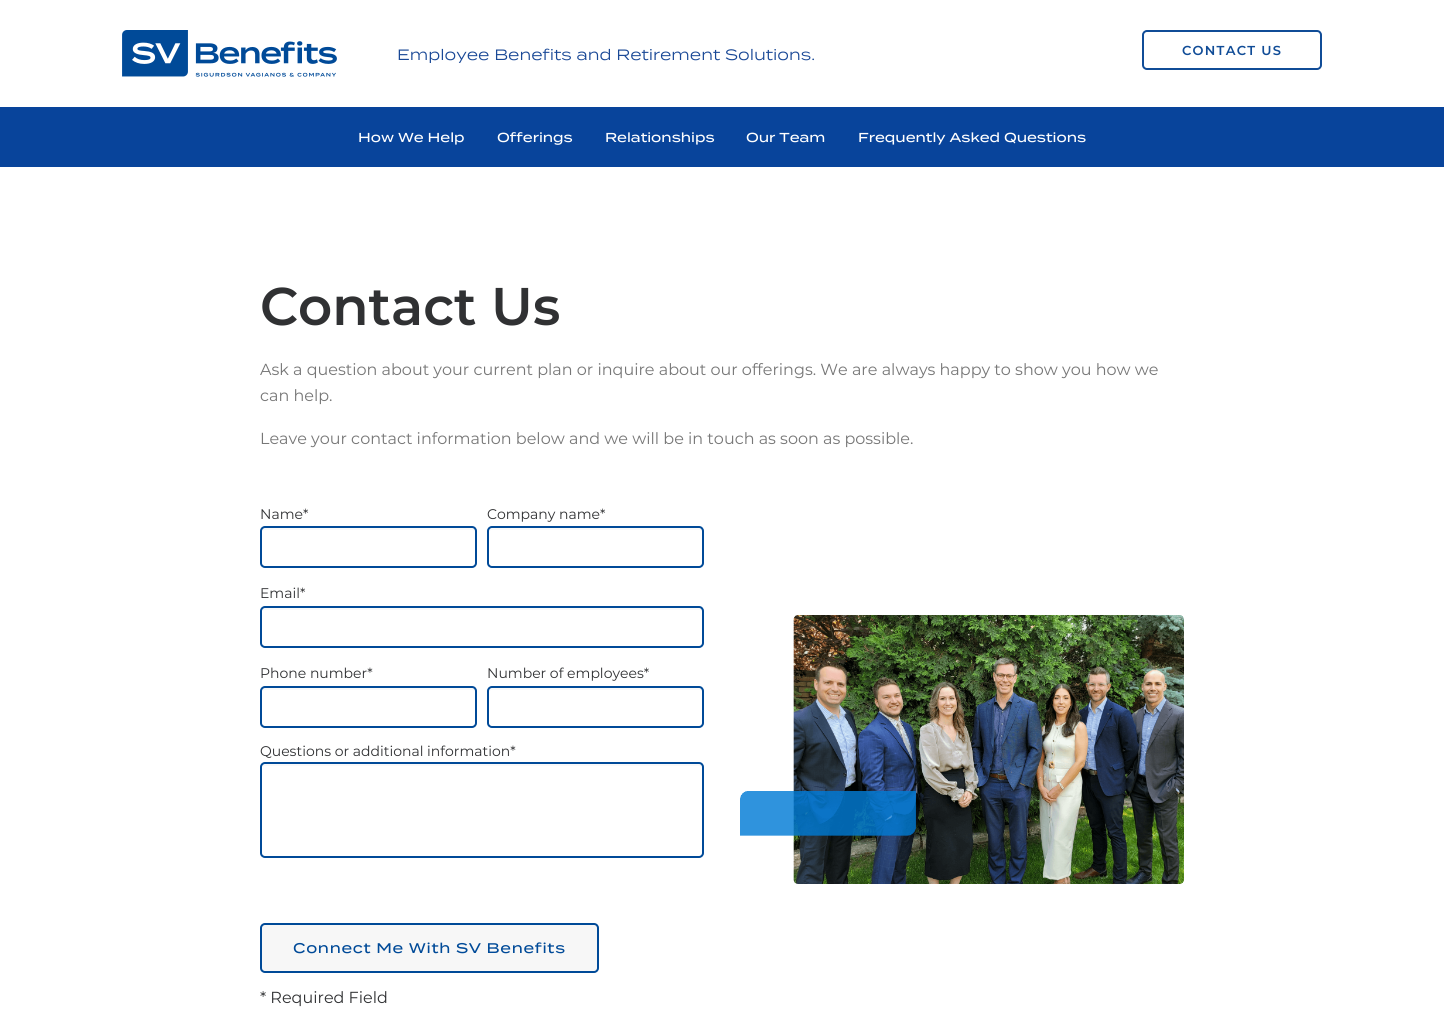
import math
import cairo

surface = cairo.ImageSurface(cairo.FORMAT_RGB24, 1444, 1018)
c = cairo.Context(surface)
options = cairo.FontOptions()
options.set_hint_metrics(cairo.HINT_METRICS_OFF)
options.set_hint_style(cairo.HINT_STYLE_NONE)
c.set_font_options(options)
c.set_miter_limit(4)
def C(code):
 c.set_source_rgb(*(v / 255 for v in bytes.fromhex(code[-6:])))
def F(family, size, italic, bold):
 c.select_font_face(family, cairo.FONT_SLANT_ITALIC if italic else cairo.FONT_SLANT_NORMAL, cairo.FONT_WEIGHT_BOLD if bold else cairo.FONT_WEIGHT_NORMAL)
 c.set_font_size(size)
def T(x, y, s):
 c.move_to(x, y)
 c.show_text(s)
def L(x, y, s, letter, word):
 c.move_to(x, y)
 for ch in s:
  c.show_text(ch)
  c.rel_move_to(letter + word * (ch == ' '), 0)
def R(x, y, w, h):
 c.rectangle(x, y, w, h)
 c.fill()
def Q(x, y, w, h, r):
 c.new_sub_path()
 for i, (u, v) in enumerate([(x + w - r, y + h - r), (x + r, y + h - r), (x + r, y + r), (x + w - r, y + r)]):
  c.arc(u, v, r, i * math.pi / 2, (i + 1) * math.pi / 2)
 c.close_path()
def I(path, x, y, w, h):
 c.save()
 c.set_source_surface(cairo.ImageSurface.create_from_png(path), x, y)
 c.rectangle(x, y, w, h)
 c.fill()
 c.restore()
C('ffffff')
c.paint()
I('1.png',122,30,215,47)
F('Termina',15,0,0)
C('194896')
T(397,60,'Employee Benefits and Retirement Solutions.')
Q(1143,31,178,38,4)
C('104c97')
c.stroke()
F('Montserrat SemiBold',13,0,0)
L(1182,55,'CONTACT US',1.25,0)
C('08449b')
R(0,107,1444,60)
F('Termina Medium',13,0,0)
C('ffffff')
T(358,142,'How We Help')
T(497,142,'Offerings')
T(605,142,'Relationships')
T(746,142,'Our Team')
T(858,142,'Frequently Asked Questions')
F('Montserrat SemiBold',53,0,0)
C('303133')
T(260,325,'Contact Us')
F('Montserrat',16,0,0)
C('777777')
T(260,375,'Ask a question about your current plan or inquire about our offerings. We are always happy to show you how we')
T(260,401,'can help.')
T(260,444,'Leave your contact information below and we will be in touch as soon as possible.')
F('Montserrat',14,0,0)
C('303133')
T(260,519,'Name*')
C('f9f9f9')
c.new_path()
c.move_to(265,530)
c.line_to(472,530)
c.curve_to(474,530,475,531,475,533)
c.curve_to(475,531,475,528,472,528)
c.line_to(265,528)
c.curve_to(262,528,262,531,262,533)
c.curve_to(262,531,263,530,265,530)
c.close_path()
c.fill()
Q(261,527,215,40,4)
C('004a98')
c.stroke()
C('303133')
T(487,519,'Company name*')
C('f9f9f9')
c.new_path()
c.move_to(492,530)
c.line_to(699,530)
c.curve_to(701,530,702,531,702,533)
c.curve_to(702,531,702,528,699,528)
c.line_to(492,528)
c.curve_to(489,528,489,531,489,533)
c.curve_to(489,531,490,530,492,530)
c.close_path()
c.fill()
Q(488,527,215,40,4)
C('004a98')
c.stroke()
C('303133')
T(260,598,'Email*')
C('f9f9f9')
c.new_path()
c.move_to(265,610)
c.line_to(699,610)
c.curve_to(701,610,702,611,702,613)
c.curve_to(702,611,702,608,699,608)
c.line_to(265,608)
c.line_to(263,609)
c.line_to(262,613)
c.curve_to(262,611,263,610,265,610)
c.close_path()
c.fill()
Q(261,607,442,40,4)
C('004a98')
c.stroke()
C('303133')
T(260,678,'Phone number*')
C('f9f9f9')
c.new_path()
c.move_to(265,690)
c.line_to(472,690)
c.curve_to(474,690,475,691,475,693)
c.curve_to(475,691,475,688,472,688)
c.line_to(265,688)
c.curve_to(262,688,262,691,262,693)
c.curve_to(262,691,263,690,265,690)
c.close_path()
c.fill()
Q(261,687,215,40,4)
C('004a98')
c.stroke()
C('303133')
T(487,678,'Number of employees*')
C('f9f9f9')
c.new_path()
c.move_to(492,690)
c.line_to(699,690)
c.curve_to(701,690,702,691,702,693)
c.curve_to(702,691,702,688,699,688)
c.line_to(492,688)
c.curve_to(489,688,489,691,489,693)
c.curve_to(489,691,490,690,492,690)
c.close_path()
c.fill()
Q(488,687,215,40,4)
C('004a98')
c.stroke()
C('303133')
T(260,756,'Questions or additional information*')
C('f9f9f9')
c.new_path()
c.move_to(265,766)
c.line_to(699,766)
c.curve_to(701,766,702,767,702,769)
c.curve_to(702,767,702,764,699,764)
c.line_to(265,764)
c.line_to(263,765)
c.line_to(262,769)
c.curve_to(262,767,263,766,265,766)
c.close_path()
c.fill()
Q(261,763,442,94,4)
C('004a98')
c.stroke()
C('f7f7f7')
Q(261,924,337,48,4)
c.fill_preserve()
C('004a98')
c.stroke()
F('Termina Medium',14,0,0)
L(293,953,'Connect Me With SV Benefits',.7,0)
F('Montserrat',16,0,0)
C('303133')
T(260,1003,'* Required Field')
I('2.png',740,615,444,269)
surface.write_to_png('o.png')
